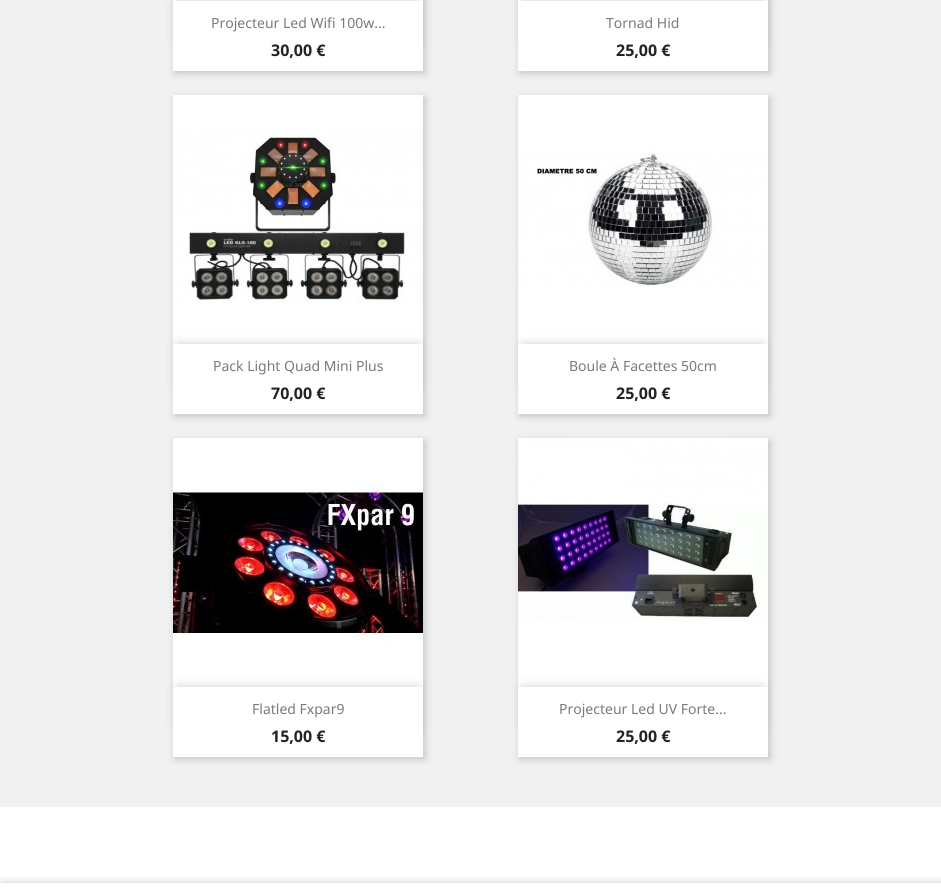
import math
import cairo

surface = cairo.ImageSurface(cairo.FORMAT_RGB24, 941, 891)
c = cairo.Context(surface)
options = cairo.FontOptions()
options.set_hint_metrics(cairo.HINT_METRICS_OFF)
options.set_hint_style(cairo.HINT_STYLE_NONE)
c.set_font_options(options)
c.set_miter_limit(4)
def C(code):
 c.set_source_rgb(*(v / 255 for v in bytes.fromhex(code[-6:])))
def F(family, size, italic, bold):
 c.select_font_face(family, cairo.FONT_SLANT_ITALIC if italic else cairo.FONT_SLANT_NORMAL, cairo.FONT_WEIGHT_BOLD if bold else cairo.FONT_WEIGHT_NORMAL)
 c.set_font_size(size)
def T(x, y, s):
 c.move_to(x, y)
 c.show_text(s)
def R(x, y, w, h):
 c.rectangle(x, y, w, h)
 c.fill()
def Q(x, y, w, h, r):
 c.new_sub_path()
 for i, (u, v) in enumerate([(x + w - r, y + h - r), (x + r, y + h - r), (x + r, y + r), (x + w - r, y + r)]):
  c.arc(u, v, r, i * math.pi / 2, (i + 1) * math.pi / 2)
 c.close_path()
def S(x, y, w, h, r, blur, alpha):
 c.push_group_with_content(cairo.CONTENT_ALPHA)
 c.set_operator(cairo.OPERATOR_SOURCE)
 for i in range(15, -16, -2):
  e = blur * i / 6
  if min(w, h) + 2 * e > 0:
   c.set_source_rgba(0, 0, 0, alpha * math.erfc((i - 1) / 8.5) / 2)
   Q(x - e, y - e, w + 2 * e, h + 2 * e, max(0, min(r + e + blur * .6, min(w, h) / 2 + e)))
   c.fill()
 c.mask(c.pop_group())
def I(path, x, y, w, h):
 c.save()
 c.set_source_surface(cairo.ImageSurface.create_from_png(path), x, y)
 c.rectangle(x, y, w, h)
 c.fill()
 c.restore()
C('ffffff')
c.paint()
C('f1f1f1')
R(0,0,941,807)
C('000000')
S(175,-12,250,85,0,4,.2)
C('ffffff')
R(173,0,250,1)
C('000000')
S(178,1,240,40,0,5,.2)
C('ffffff')
R(173,1,250,70)
F('Noto Sans',14,0,0)
C('7a7a7a')
T(211,28,'Projecteur Led Wifi 100w...')
F('Noto Sans',16,0,1)
C('232323')
T(271,56,'30,00 €')
C('000000')
S(520,-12,250,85,0,4,.2)
C('ffffff')
R(518,0,250,1)
C('000000')
S(523,1,240,40,0,5,.2)
C('ffffff')
R(518,1,250,70)
F('Noto Sans',14,0,0)
C('7a7a7a')
T(606,28,'Tornad Hid')
F('Noto Sans',16,0,1)
C('232323')
T(616,56,'25,00 €')
C('000000')
S(175,98,250,318,0,4,.2)
C('ffffff')
R(173,303,250,41)
I('1.png',173,95,250,208)
C('000000')
S(178,344,240,40,0,5,.2)
C('ffffff')
R(173,344,250,70)
F('Noto Sans',14,0,0)
C('7a7a7a')
T(213,371,'Pack Light Quad Mini Plus')
F('Noto Sans',16,0,1)
C('232323')
T(271,399,'70,00 €')
C('000000')
S(520,98,250,318,0,4,.2)
C('ffffff')
R(518,287,250,57)
I('2.png',518,95,250,192)
C('000000')
S(523,344,240,40,0,5,.2)
C('ffffff')
R(518,344,250,70)
F('Noto Sans',14,0,0)
C('7a7a7a')
T(569,371,'Boule À Facettes 50cm')
F('Noto Sans',16,0,1)
C('232323')
T(616,399,'25,00 €')
C('000000')
S(175,441,250,318,0,4,.2)
C('ffffff')
R(173,643,250,44)
I('3.png',173,438,250,205)
C('000000')
S(178,687,240,40,0,5,.2)
C('ffffff')
R(173,687,250,70)
F('Noto Sans',14,0,0)
C('7a7a7a')
T(252,714,'Flatled Fxpar9')
F('Noto Sans',16,0,1)
C('232323')
T(271,742,'15,00 €')
C('000000')
S(520,441,250,318,0,4,.2)
C('ffffff')
R(518,622,250,65)
I('4.png',518,438,250,184)
C('000000')
S(523,687,240,40,0,5,.2)
C('ffffff')
R(518,687,250,70)
F('Noto Sans',14,0,0)
C('7a7a7a')
T(559,714,'Projecteur Led UV Forte...')
F('Noto Sans',16,0,1)
C('232323')
T(616,742,'25,00 €')
c.save()
c.rectangle(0,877,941,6)
c.clip()
C('000000')
S(2,885,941,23,0,5.5,.3)
c.restore()
surface.write_to_png('o.png')
